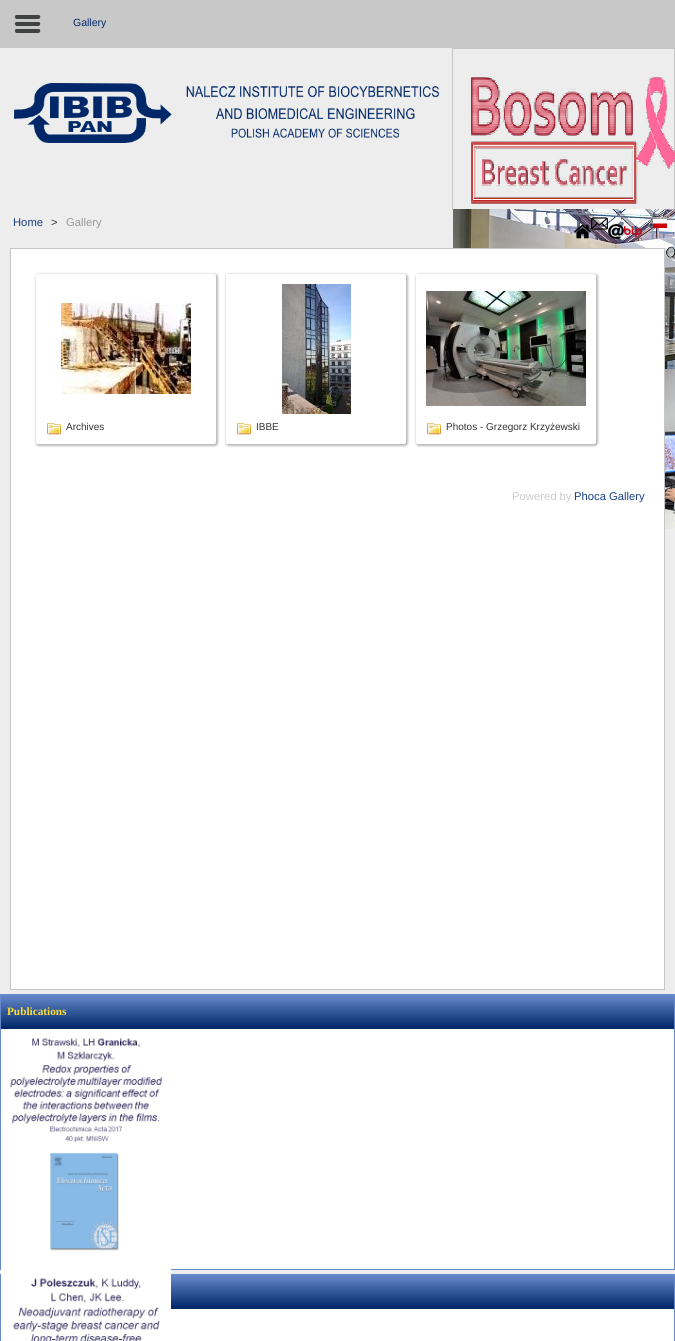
import math
import cairo

surface = cairo.ImageSurface(cairo.FORMAT_RGB24, 675, 1341)
c = cairo.Context(surface)
options = cairo.FontOptions()
options.set_hint_metrics(cairo.HINT_METRICS_OFF)
options.set_hint_style(cairo.HINT_STYLE_NONE)
c.set_font_options(options)
c.set_miter_limit(4)
def C(code):
 c.set_source_rgb(*(v / 255 for v in bytes.fromhex(code[-6:])))
def F(family, size, italic, bold):
 c.select_font_face(family, cairo.FONT_SLANT_ITALIC if italic else cairo.FONT_SLANT_NORMAL, cairo.FONT_WEIGHT_BOLD if bold else cairo.FONT_WEIGHT_NORMAL)
 c.set_font_size(size)
def T(x, y, s):
 c.move_to(x, y)
 c.show_text(s)
def R(x, y, w, h):
 c.rectangle(x, y, w, h)
 c.fill()
def Q(x, y, w, h, r):
 c.new_sub_path()
 for i, (u, v) in enumerate([(x + w - r, y + h - r), (x + r, y + h - r), (x + r, y + r), (x + w - r, y + r)]):
  c.arc(u, v, r, i * math.pi / 2, (i + 1) * math.pi / 2)
 c.close_path()
def S(x, y, w, h, r, blur, alpha):
 c.push_group_with_content(cairo.CONTENT_ALPHA)
 c.set_operator(cairo.OPERATOR_SOURCE)
 for i in range(15, -16, -2):
  e = blur * i / 6
  if min(w, h) + 2 * e > 0:
   c.set_source_rgba(0, 0, 0, alpha * math.erfc((i - 1) / 8.5) / 2)
   Q(x - e, y - e, w + 2 * e, h + 2 * e, max(0, min(r + e + blur * .6, min(w, h) / 2 + e)))
   c.fill()
 c.mask(c.pop_group())
def I(path, x, y, w, h):
 c.save()
 c.set_source_surface(cairo.ImageSurface.create_from_png(path), x, y)
 c.rectangle(x, y, w, h)
 c.fill()
 c.restore()
C('ededed')
c.paint()
C('c8c8c8')
R(0,0,675,48)
I('1.png',14,15,27,18)
F('Liberation Sans',10.5,0,0)
C('002868')
T(73,26,'Gallery')
I('2.png',14,83,425,60)
c.rectangle(452.5,48.5,222,161)
C('c5c5c5')
c.set_line_width(1)
c.stroke()
I('3.png',471,76,204,128)
I('4.png',453,209,222,160)
I('5.png',665,369,10,160)
F('Liberation Sans',11.25,0,0)
C('193f81')
T(13,226,'Home')
C('333333')
T(51,226,'>')
C('999999')
T(66,226,'Gallery')
I('6.png',574,224,17,15)
I('7.png',591,217,17,13)
I('8.png',608,224,16,15)
I('9.png',624,226,18,11)
I('10.png',653,219,14,9)
C('ffffff')
c.rectangle(10.5,248.5,654,741)
c.fill_preserve()
C('c5c5c5')
c.stroke()
c.save()
c.set_fill_rule(cairo.FILL_RULE_EVEN_ODD)
c.new_path()
c.move_to(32,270)
c.line_to(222,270)
c.line_to(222,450)
c.line_to(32,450)
c.close_path()
c.move_to(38,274)
c.line_to(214,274)
c.curve_to(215,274,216,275,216,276)
c.line_to(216,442)
c.curve_to(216,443,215,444,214,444)
c.line_to(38,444)
c.curve_to(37,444,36,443,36,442)
c.line_to(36,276)
c.curve_to(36,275,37,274,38,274)
c.close_path()
c.clip()
C('787878')
S(36,274,182,172,3,1,.5)
c.restore()
I('11.png',61,303,130,91)
I('12.png',47,423,14,12)
F('Liberation Sans',10,0,0)
C('333333')
T(66,430,'Archives')
c.save()
c.set_fill_rule(cairo.FILL_RULE_EVEN_ODD)
c.new_path()
c.move_to(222,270)
c.line_to(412,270)
c.line_to(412,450)
c.line_to(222,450)
c.close_path()
c.move_to(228,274)
c.line_to(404,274)
c.curve_to(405,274,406,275,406,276)
c.line_to(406,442)
c.curve_to(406,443,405,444,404,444)
c.line_to(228,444)
c.curve_to(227,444,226,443,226,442)
c.line_to(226,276)
c.curve_to(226,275,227,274,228,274)
c.close_path()
c.clip()
C('787878')
S(226,274,182,172,3,1,.5)
c.restore()
I('13.png',282,284,69,130)
I('12.png',237,423,14,12)
T(256,430,'IBBE')
c.save()
c.set_fill_rule(cairo.FILL_RULE_EVEN_ODD)
c.new_path()
c.move_to(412,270)
c.line_to(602,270)
c.line_to(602,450)
c.line_to(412,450)
c.close_path()
c.move_to(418,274)
c.line_to(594,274)
c.curve_to(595,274,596,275,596,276)
c.line_to(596,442)
c.curve_to(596,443,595,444,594,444)
c.line_to(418,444)
c.curve_to(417,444,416,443,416,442)
c.line_to(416,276)
c.curve_to(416,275,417,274,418,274)
c.close_path()
c.clip()
C('787878')
S(416,274,182,172,3,1,.5)
c.restore()
I('14.png',426,291,160,115)
I('12.png',427,423,14,12)
T(446,430,'Photos - Grzegorz Krzyżewski')
F('Liberation Sans',11.25,0,0)
C('cccccc')
T(512,500,'Powered by')
C('193f81')
T(574,500,'Phoca Gallery')
C('ffffff')
R(1,1029,673,240)
c.rectangle(.5,994.5,674,275)
C('6689cc')
c.stroke()
gradient = cairo.LinearGradient(338,995,338,1028)
gradient.add_color_stop_rgba(0,0.4,0.537,0.8,1)
gradient.add_color_stop_rgba(1,0,0.157,0.408,1)
c.set_source(gradient)
R(1,995,673,33)
C('002868')
R(1,1028,673,1)
F('Liberation Serif',11.25,0,1)
C('fdde31')
T(7,1015,'Publications')
I('15.png',9,1037,154,214)
C('ffffff')
R(171,1309,503,32)
c.rectangle(.5,1274.5,674,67)
C('6689cc')
c.stroke()
I('16.png',1,1269,170,72)
gradient = cairo.LinearGradient(338,1275,338,1308)
gradient.add_color_stop_rgba(0,0.4,0.537,0.8,1)
gradient.add_color_stop_rgba(1,0,0.157,0.408,1)
c.set_source(gradient)
R(171,1275,503,33)
C('002868')
R(171,1308,503,1)
surface.write_to_png('o.png')
